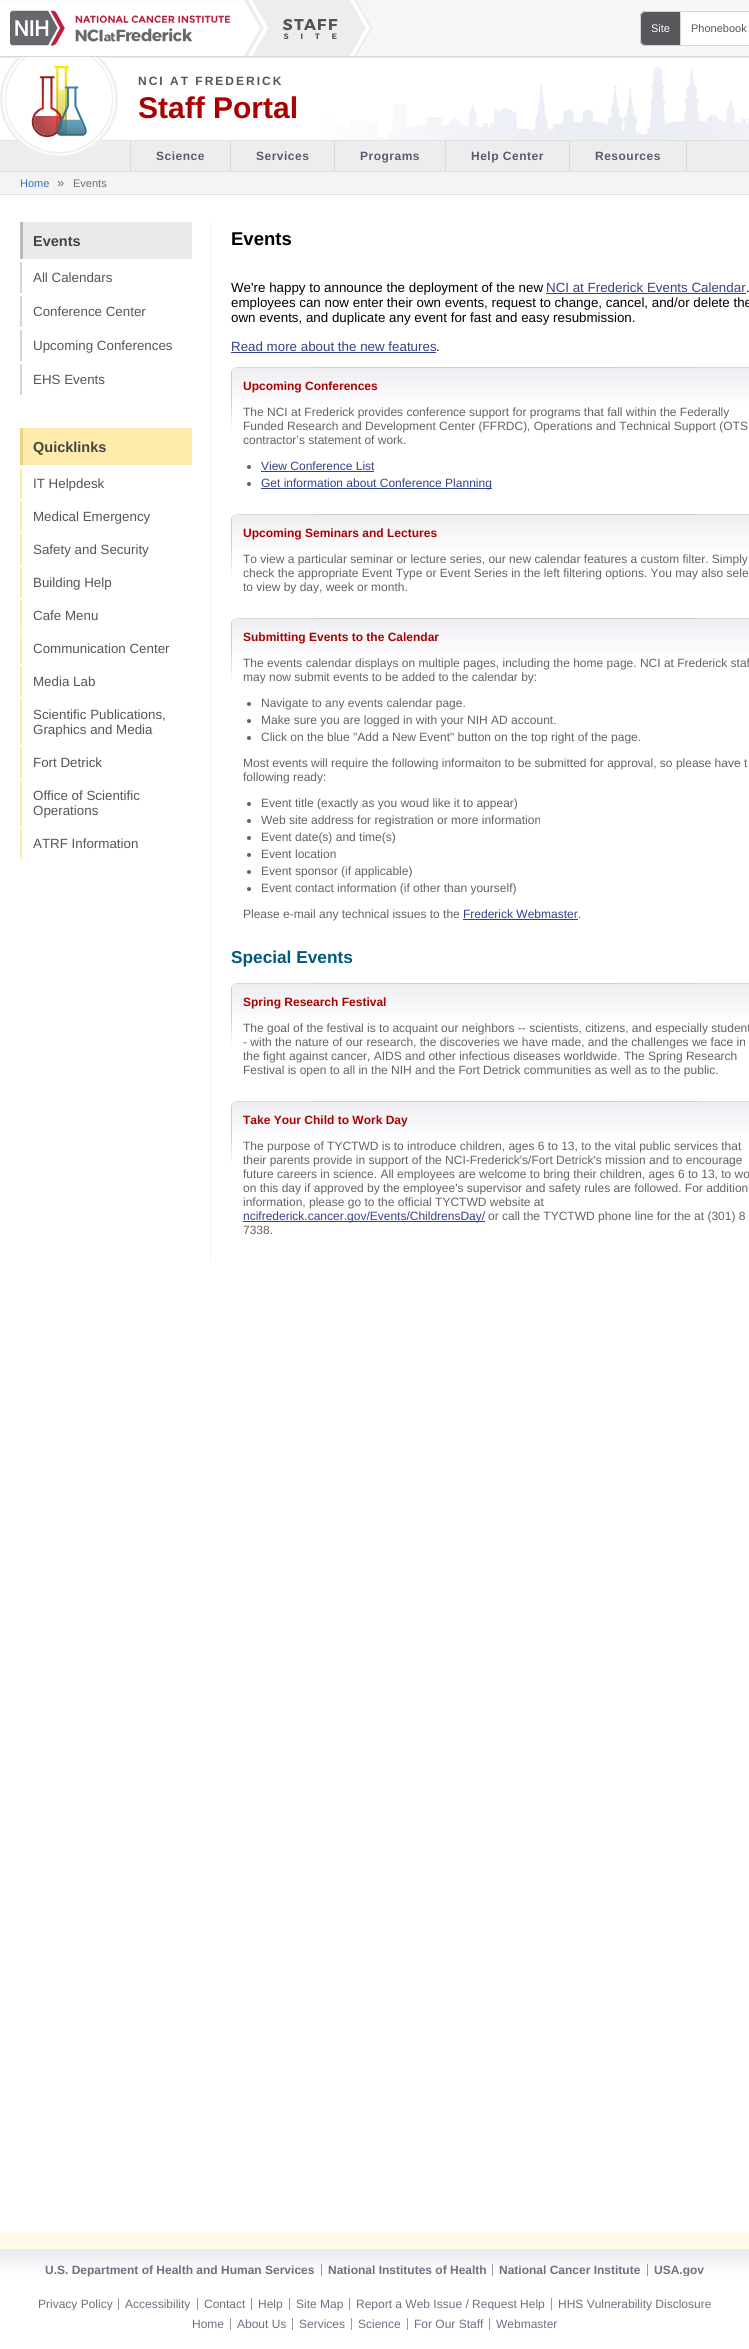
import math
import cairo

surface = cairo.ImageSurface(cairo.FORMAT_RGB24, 749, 2349)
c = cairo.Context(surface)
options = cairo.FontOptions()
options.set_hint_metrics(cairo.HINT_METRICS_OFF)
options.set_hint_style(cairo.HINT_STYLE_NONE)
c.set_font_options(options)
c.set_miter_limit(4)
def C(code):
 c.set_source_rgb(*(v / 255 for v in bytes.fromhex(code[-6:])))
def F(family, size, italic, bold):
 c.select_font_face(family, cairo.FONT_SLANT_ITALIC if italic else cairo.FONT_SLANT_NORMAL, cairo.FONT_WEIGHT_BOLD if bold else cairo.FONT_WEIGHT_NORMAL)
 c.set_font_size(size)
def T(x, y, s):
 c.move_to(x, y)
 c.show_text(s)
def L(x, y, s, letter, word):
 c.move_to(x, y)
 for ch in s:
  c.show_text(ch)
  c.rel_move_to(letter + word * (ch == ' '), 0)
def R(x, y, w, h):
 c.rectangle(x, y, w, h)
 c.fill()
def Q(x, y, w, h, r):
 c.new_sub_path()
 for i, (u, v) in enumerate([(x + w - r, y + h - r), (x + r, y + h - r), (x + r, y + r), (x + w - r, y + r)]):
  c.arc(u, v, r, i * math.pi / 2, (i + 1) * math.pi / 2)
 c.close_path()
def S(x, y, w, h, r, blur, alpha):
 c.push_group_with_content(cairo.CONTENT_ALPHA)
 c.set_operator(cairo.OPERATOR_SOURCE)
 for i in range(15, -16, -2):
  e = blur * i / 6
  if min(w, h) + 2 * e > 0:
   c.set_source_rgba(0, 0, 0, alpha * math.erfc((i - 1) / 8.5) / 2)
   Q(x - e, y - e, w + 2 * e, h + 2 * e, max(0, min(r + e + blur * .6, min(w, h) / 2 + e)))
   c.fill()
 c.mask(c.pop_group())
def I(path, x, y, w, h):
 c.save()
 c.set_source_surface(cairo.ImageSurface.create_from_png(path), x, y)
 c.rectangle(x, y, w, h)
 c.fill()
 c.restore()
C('ffffff')
c.paint()
C('000000')
S(0,1,749,57,0,.5,.07)
C('d8d5d5')
R(0,56,749,1)
C('ffffff')
R(0,1,374,55)
C('ededed')
c.set_fill_rule(cairo.FILL_RULE_EVEN_ODD)
c.new_path()
c.move_to(350,0)
c.line_to(252,0)
c.line_to(268,28)
c.line_to(252,56)
c.line_to(350,56)
c.line_to(366,28)
c.close_path()
c.fill()
c.set_fill_rule(cairo.FILL_RULE_WINDING)
c.new_path()
c.move_to(248,0)
c.line_to(244,0)
c.line_to(260,28)
c.line_to(244,56)
c.line_to(248,56)
c.line_to(264,28)
c.close_path()
c.fill()
c.new_path()
c.move_to(357,0)
c.line_to(354,0)
c.line_to(370,28)
c.line_to(354,56)
c.line_to(357,56)
c.line_to(373,28)
c.close_path()
c.fill()
C('f6f6f6')
c.new_path()
c.move_to(357,0)
c.line_to(374,28)
c.line_to(358,56)
c.line_to(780,56)
c.line_to(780,0)
c.close_path()
c.fill()
c.new_path()
c.move_to(358,0)
c.line_to(373,28)
c.line_to(357,56)
c.line_to(374,28)
c.close_path()
c.fill()
I('1.png',10,10,220,36)
I('2.png',282,19,56,20)
C('57575c')
c.new_path()
c.move_to(646,11)
c.line_to(680,11)
c.line_to(680,46)
c.line_to(646,46)
c.curve_to(642.5,46,640,43.5,640,40)
c.line_to(640,17)
c.curve_to(640,13.5,642.5,11,646,11)
c.close_path()
c.fill()
C('d7d7d7')
c.set_fill_rule(cairo.FILL_RULE_EVEN_ODD)
c.new_path()
c.move_to(646,11)
c.line_to(680,11)
c.line_to(680,46)
c.line_to(646,46)
c.curve_to(643,46,640,43,640,40)
c.line_to(640,17)
c.curve_to(640,14,643,11,646,11)
c.close_path()
c.move_to(646,12)
c.line_to(680,12)
c.line_to(680,45)
c.line_to(646,45)
c.curve_to(643,45,641,43,641,40)
c.line_to(641,17)
c.curve_to(641,14,643,12,646,12)
c.close_path()
c.fill()
F('Liberation Sans',11,0,0)
C('ffffff')
T(651,32,'Site')
R(681,12,68,33)
C('d7d7d7')
R(680,11,69,1)
R(680,45,69,1)
R(680,11,1,35)
C('57575c')
T(691,32,'Phonebook')
I('3.png',94,67,655,73)
C('ededed')
R(0,141,749,30)
C('e2e2e2')
R(0,140,749,1)
I('4.png',0,57,118,99)
F('Liberation Sans',12,0,1)
C('555555')
L(138,85,'NCI AT FREDERICK',2,0)
F('Liberation Sans',30,0,1)
C('a90101')
T(138,118,'Staff Portal')
C('e2e2e2')
R(0,171,749,1)
C('dadada')
R(230,141,1,30)
R(130,141,1,30)
F('Liberation Sans',12,0,1)
C('595c6f')
L(156,160,'Science',.5,0)
C('dadada')
R(334,141,1,30)
C('595c6f')
L(256,160,'Services',.5,0)
C('dadada')
R(445,141,1,30)
C('595c6f')
L(360,160,'Programs',.5,0)
C('dadada')
R(569,141,1,30)
C('595c6f')
L(471,160,'Help Center',.5,0)
C('dadada')
R(686,141,1,30)
C('595c6f')
L(595,160,'Resources',.5,0)
gradient = cairo.LinearGradient(374,172,375,2349)
gradient.add_color_stop_rgba(0,0.984,0.898,0.639,1)
gradient.add_color_stop_rgba(.18,1,0.976,0.906,1)
gradient.add_color_stop_rgba(1,1,0.976,0.906,1)
c.set_source(gradient)
R(0,2232,749,17)
C('f4f4f4')
R(0,172,749,22)
C('e3e3e3')
R(0,194,749,1)
F('Liberation Sans',11,0,0)
C('336ec0')
T(20,187,'Home')
F('Liberation Sans',13,0,0)
C('707070')
T(57,187,'»')
F('Liberation Sans',11,0,0)
T(73,187,'Events')
C('f4f4f4')
R(210,222,1,1039)
C('eaeaea')
R(23,222,169,37)
C('b8b8b8')
R(20,222,3,37)
F('Liberation Sans',14.5,0,1)
C('444444')
T(33,246,'Events')
C('d5d5d5')
R(20,262,2,31)
F('Liberation Sans',13.35,0,0)
C('555555')
T(33,282,'All Calendars')
C('d5d5d5')
R(20,296,2,31)
C('555555')
T(33,316,'Conference Center')
C('d5d5d5')
R(20,330,2,31)
C('555555')
T(33,350,'Upcoming Conferences')
C('d5d5d5')
R(20,364,2,31)
C('555555')
T(33,384,'EHS Events')
C('ffebac')
R(23,428,169,37)
C('edd484')
R(20,428,3,37)
F('Liberation Sans',14.5,0,1)
C('444444')
T(33,452,'Quicklinks')
C('ffebac')
R(20,468,2,31)
F('Liberation Sans',13.35,0,0)
C('555555')
T(33,488,'IT Helpdesk')
C('ffebac')
R(20,501,2,31)
C('555555')
T(33,521,'Medical Emergency')
C('ffebac')
R(20,534,2,31)
C('555555')
T(33,554,'Safety and Security')
C('ffebac')
R(20,567,2,31)
C('555555')
T(33,587,'Building Help')
C('ffebac')
R(20,600,2,31)
C('555555')
T(33,620,'Cafe Menu')
C('ffebac')
R(20,633,2,31)
C('555555')
T(33,653,'Communication Center')
C('ffebac')
R(20,666,2,31)
C('555555')
T(33,686,'Media Lab')
C('ffebac')
R(20,699,2,46)
C('555555')
T(33,719,'Scientific Publications,')
T(33,734,'Graphics and Media')
C('ffebac')
R(20,747,2,31)
C('555555')
T(33,767,'Fort Detrick')
C('ffebac')
R(20,780,2,46)
C('555555')
T(33,800,'Office of Scientific')
T(33,815,'Operations')
C('ffebac')
R(20,828,2,31)
C('555555')
T(33,848,'ATRF Information')
F('Liberation Sans',18.5,0,1)
C('000000')
T(231,245,'Events')
F('Liberation Sans',13.35,0,0)
T(231,292,'We\'re happy to announce the deployment of the new')
C('344287')
T(546,292,'NCI at Frederick Events Calendar')
R(546,293,200,1)
C('000000')
T(746,292,'.')
T(231,307,'employees can now enter their own events, request to change, cancel, and/or delete the')
T(231,322,'own events, and duplicate any event for fast and easy resubmission.')
C('344287')
T(231,351,'Read more about the new features')
R(231,352,205,1)
C('000000')
T(436,351,'.')
I('5.png',231,367,518,62)
F('Liberation Sans',12,0,1)
C('a90101')
T(243,390,'Upcoming Conferences')
F('Liberation Sans',12,0,0)
C('636363')
T(243,416,'The NCI at Frederick provides conference support for programs that fall within the Federally')
T(243,430,'Funded Research and Development Center (FFRDC), Operations and Technical Support (OTS')
T(243,444,'contractor’s statement of work.')
c.new_path()
c.arc(249,467,2,0,2 * math.pi)
c.fill()
C('344287')
T(261,470,'View Conference List')
R(261,471,113,1)
C('636363')
c.new_path()
c.arc(249,484,2,0,2 * math.pi)
c.fill()
C('344287')
R(261,488,231,1)
T(261,487,'Get information about Conference Planning')
I('5.png',231,514,518,62)
F('Liberation Sans',12,0,1)
C('a90101')
T(243,537,'Upcoming Seminars and Lectures')
F('Liberation Sans',12,0,0)
C('636363')
T(243,563,'To view a particular seminar or lecture series, our new calendar features a custom filter. Simply')
T(243,577,'check the appropriate Event Type or Event Series in the left filtering options. You may also sele')
T(243,591,'to view by day, week or month.')
I('5.png',231,618,518,62)
F('Liberation Sans',12,0,1)
C('a90101')
T(243,641,'Submitting Events to the Calendar')
F('Liberation Sans',12,0,0)
C('636363')
T(243,667,'The events calendar displays on multiple pages, including the home page. NCI at Frederick staf')
T(243,681,'may now submit events to be added to the calendar by:')
c.new_path()
c.arc(249,704,2,0,2 * math.pi)
c.fill()
T(261,707,'Navigate to any events calendar page.')
c.new_path()
c.arc(249,721,2,0,2 * math.pi)
c.fill()
T(261,724,'Make sure you are logged in with your NIH AD account.')
c.new_path()
c.arc(249,738,2,0,2 * math.pi)
c.fill()
T(261,741,'Click on the blue "Add a New Event" button on the top right of the page.')
T(243,767,'Most events will require the following informaiton to be submitted for approval, so please have t')
T(243,781,'following ready:')
c.new_path()
c.arc(249,804,2,0,2 * math.pi)
c.fill()
T(261,807,'Event title (exactly as you woud like it to appear)')
c.new_path()
c.arc(249,821,2,0,2 * math.pi)
c.fill()
T(261,824,'Web site address for registration or more information')
c.new_path()
c.arc(249,838,2,0,2 * math.pi)
c.fill()
T(261,841,'Event date(s) and time(s)')
c.new_path()
c.arc(249,855,2,0,2 * math.pi)
c.fill()
T(261,858,'Event location')
c.new_path()
c.arc(249,872,2,0,2 * math.pi)
c.fill()
T(261,875,'Event sponsor (if applicable)')
c.new_path()
c.arc(249,889,2,0,2 * math.pi)
c.fill()
T(261,892,'Event contact information (if other than yourself)')
T(243,918,'Please e-mail any technical issues to the')
C('344287')
T(463,918,'Frederick Webmaster')
R(463,919,115,1)
C('636363')
T(578,918,'.')
F('Liberation Sans',17.25,0,1)
C('00597b')
T(231,963,'Special Events')
I('5.png',231,983,518,62)
F('Liberation Sans',12,0,1)
C('a90101')
T(243,1006,'Spring Research Festival')
F('Liberation Sans',12,0,0)
C('636363')
T(243,1032,'The goal of the festival is to acquaint our neighbors -- scientists, citizens, and especially student')
T(243,1046,'- with the nature of our research, the discoveries we have made, and the challenges we face in')
T(243,1060,'the fight against cancer, AIDS and other infectious diseases worldwide. The Spring Research')
T(243,1074,'Festival is open to all in the NIH and the Fort Detrick communities as well as to the public.')
I('5.png',231,1101,518,62)
F('Liberation Sans',12,0,1)
C('a90101')
T(243,1124,'Take Your Child to Work Day')
F('Liberation Sans',12,0,0)
C('636363')
T(243,1150,'The purpose of TYCTWD is to introduce children, ages 6 to 13, to the vital public services that')
T(243,1164,'their parents provide in support of the NCI-Frederick\'s/Fort Detrick\'s mission and to encourage')
T(243,1178,'future careers in science. All employees are welcome to bring their children, ages 6 to 13, to wo')
T(243,1192,'on this day if approved by the employee\'s supervisor and safety rules are followed. For addition')
T(243,1206,'information, please go to the official TYCTWD website at')
C('344287')
R(243,1221,242,1)
T(243,1220,'ncifrederick.cancer.gov/Events/ChildrensDay/')
C('636363')
T(488,1220,'or call the TYCTWD phone line for the at (301) 8')
T(243,1234,'7338.')
I('6.png',0,2249,749,100)
F('Liberation Sans',12,0,1)
C('6d7083')
T(45,2274,'U.S. Department of Health and Human Services')
C('9799a8')
R(321,2264,1,12)
C('6d7083')
T(328,2274,'National Institutes of Health')
C('9799a8')
R(492,2264,1,12)
C('6d7083')
T(499,2274,'National Cancer Institute')
C('9799a8')
R(647,2264,1,12)
c.save()
c.set_fill_rule(cairo.FILL_RULE_WINDING)
c.rectangle(648,2264,62,12)
c.clip()
C('6d7083')
T(654,2274,'USA.gov')
c.restore()
c.save()
c.set_fill_rule(cairo.FILL_RULE_WINDING)
c.rectangle(32,2298,86,12)
c.clip()
F('Liberation Sans',12,0,0)
C('6d7083')
T(38,2308,'Privacy Policy')
c.restore()
R(118,2298,1,12)
F('Liberation Sans',12,0,0)
C('6d7083')
T(125,2308,'Accessibility')
C('9799a8')
R(197,2298,1,12)
C('6d7083')
T(204,2308,'Contact')
C('9799a8')
R(251,2298,1,12)
C('6d7083')
T(258,2308,'Help')
C('9799a8')
R(289,2298,1,12)
C('6d7083')
T(296,2308,'Site Map')
C('9799a8')
R(349,2298,1,12)
c.save()
c.set_fill_rule(cairo.FILL_RULE_WINDING)
c.rectangle(350,2298,201,12)
c.clip()
C('6d7083')
T(356,2308,'Report a Web Issue / Request Help')
c.restore()
R(551,2298,1,12)
C('6d7083')
T(558,2308,'HHS Vulnerability Disclosure')
T(192,2328,'Home')
C('9799a8')
R(230,2318,1,12)
C('6d7083')
T(237,2328,'About Us')
C('9799a8')
R(292,2318,1,12)
C('6d7083')
T(299,2328,'Services')
C('9799a8')
R(351,2318,1,12)
C('6d7083')
T(358,2328,'Science')
C('9799a8')
R(407,2318,1,12)
C('6d7083')
T(414,2328,'For Our Staff')
C('9799a8')
R(489,2318,1,12)
C('6d7083')
T(496,2328,'Webmaster')
surface.write_to_png('o.png')
